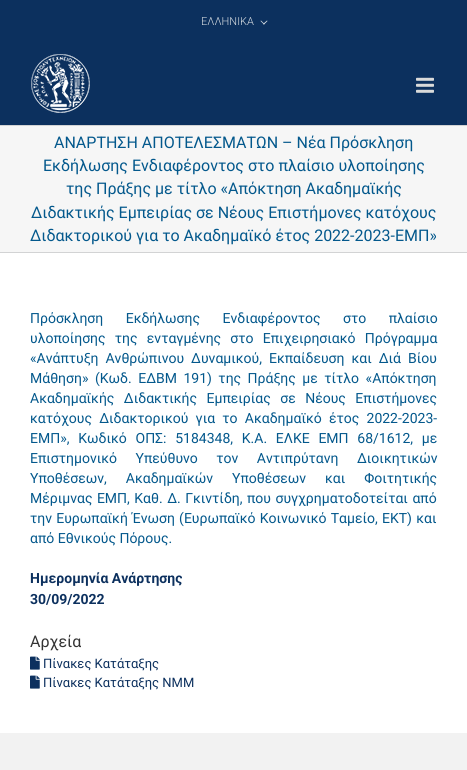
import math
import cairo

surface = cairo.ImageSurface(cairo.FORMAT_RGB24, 467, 770)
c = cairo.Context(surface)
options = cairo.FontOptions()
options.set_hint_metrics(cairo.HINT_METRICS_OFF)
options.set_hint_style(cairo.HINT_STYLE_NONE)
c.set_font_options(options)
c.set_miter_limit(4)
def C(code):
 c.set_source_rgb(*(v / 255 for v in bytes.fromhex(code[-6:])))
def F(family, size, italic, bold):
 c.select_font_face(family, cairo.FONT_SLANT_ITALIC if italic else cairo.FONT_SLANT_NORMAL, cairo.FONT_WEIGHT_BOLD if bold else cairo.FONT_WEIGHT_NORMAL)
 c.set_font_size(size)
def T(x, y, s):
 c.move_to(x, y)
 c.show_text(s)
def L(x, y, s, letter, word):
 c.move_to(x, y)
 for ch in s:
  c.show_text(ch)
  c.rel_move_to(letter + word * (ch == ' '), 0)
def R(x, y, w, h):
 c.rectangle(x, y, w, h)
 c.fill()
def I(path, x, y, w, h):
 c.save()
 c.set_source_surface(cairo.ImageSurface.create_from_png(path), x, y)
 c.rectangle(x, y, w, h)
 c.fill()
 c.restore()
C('ffffff')
c.paint()
C('0c305e')
R(0,0,467,125)
F('Roboto Light',11,0,0)
C('d8dde2')
T(201,25,'ΕΛΛΗΝΙΚΑ')
c.new_path()
c.move_to(267,20.5)
c.line_to(267.5,21)
c.line_to(264,24.5)
c.line_to(263,24)
c.close_path()
c.fill()
c.new_path()
c.move_to(261,20.5)
c.line_to(264.5,24)
c.line_to(264,24.5)
c.line_to(260.5,21)
c.close_path()
c.fill()
I('1.png',31,54,59,59)
I('2.png',416,77,18,16)
C('f6f6f6')
R(0,126,467,126)
C('d2d3d4')
R(0,125,467,1)
R(0,252,467,1)
F('Roboto',16,0,0)
C('03588c')
T(54,148,'ΑΝΑΡΤΗΣΗ ΑΠΟΤΕΛΕΣΜΑΤΩΝ – Νέα Πρόσκληση')
T(43,171,'Εκδήλωσης Ενδιαφέροντος στο πλαίσιο υλοποίησης')
T(66,194,'της Πράξης με τίτλο «Απόκτηση Ακαδημαϊκής')
T(31,218,'Διδακτικής Εμπειρίας σε Νέους Επιστήμονες κατόχους')
T(30,241,'Διδακτορικού για το Ακαδημαϊκό έτος 2022-2023-ΕΜΠ»')
F('Roboto',14,0,0)
L(30,323,'Πρόσκληση Εκδήλωσης Ενδιαφέροντος στο πλαίσιο',0,19)
L(30,343,'υλοποίησης της ενταγμένης στο Επιχειρησιακό Πρόγραμμα',0,5.75)
L(30,363,'«Ανάπτυξη Ανθρώπινου Δυναμικού, Εκπαίδευση και Διά Βίου',0,3.5)
L(30,383,'Μάθηση» (Κωδ. ΕΔΒΜ 191) της Πράξης με τίτλο «Απόκτηση',0,3)
L(30,403,'Ακαδημαϊκής Διδακτικής Εμπειρίας σε Νέους Επιστήμονες',0,6)
L(30,423,'κατόχους Διδακτορικού για το Ακαδημαϊκό έτος 2022-2023-',0,3.75)
L(30,443,'ΕΜΠ», Κωδικό ΟΠΣ: 5184348, Κ.Α. ΕΛΚΕ ΕΜΠ 68/1612, με',0,5.25)
L(30,463,'Επιστημονικό Υπεύθυνο τον Αντιπρύτανη Διοικητικών',0,15)
L(30,483,'Υποθέσεων, Ακαδημαϊκών Υποθέσεων και Φοιτητικής',0,15.5)
L(30,503,'Μέριμνας ΕΜΠ, Καθ. Δ. Γκιντίδη, που συγχρηματοδοτείται από',0,1)
L(30,523,'την Ευρωπαϊκή Ένωση (Ευρωπαϊκό Κοινωνικό Ταμείο, ΕΚΤ) και',0,.75)
T(30,543,'από Εθνικούς Πόρους.')
F('Roboto',14,0,1)
C('0c305e')
T(30,583,'Ημερομηνία Ανάρτησης')
T(30,604,'30/09/2022')
F('Roboto',16,0,0)
C('333333')
T(30,647,'Αρχεία')
I('3.png',30,656,10,14)
F('Roboto',13,0,0)
C('0c305e')
T(43,668,'Πίνακες Κατάταξης')
I('3.png',30,675,10,14)
T(43,687,'Πίνακες Κατάταξης ΝΜΜ')
C('f2f2f2')
R(0,733,467,37)
surface.write_to_png('o.png')
